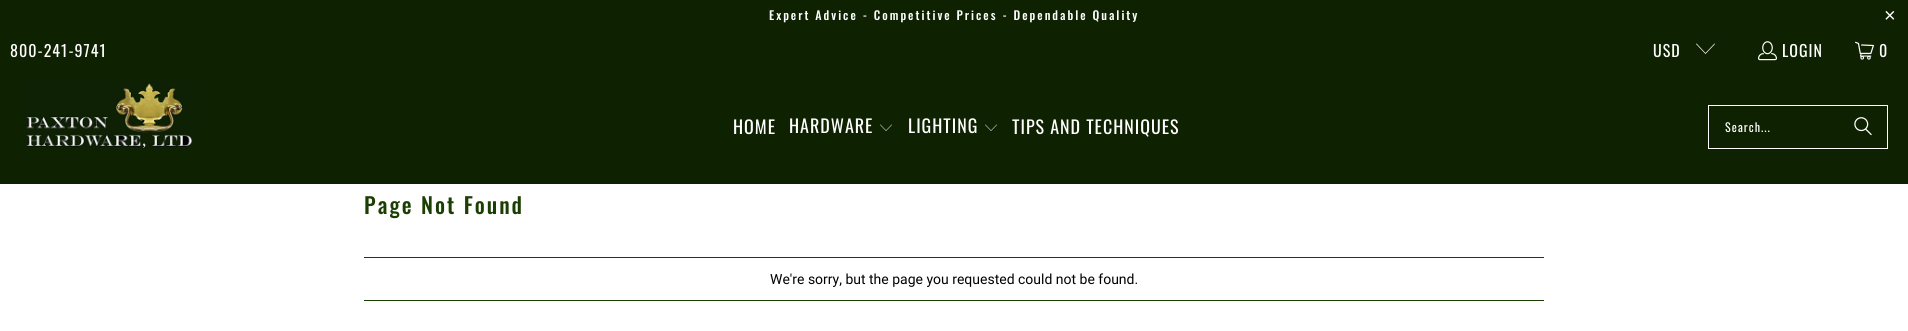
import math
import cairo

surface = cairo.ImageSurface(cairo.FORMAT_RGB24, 1908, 331)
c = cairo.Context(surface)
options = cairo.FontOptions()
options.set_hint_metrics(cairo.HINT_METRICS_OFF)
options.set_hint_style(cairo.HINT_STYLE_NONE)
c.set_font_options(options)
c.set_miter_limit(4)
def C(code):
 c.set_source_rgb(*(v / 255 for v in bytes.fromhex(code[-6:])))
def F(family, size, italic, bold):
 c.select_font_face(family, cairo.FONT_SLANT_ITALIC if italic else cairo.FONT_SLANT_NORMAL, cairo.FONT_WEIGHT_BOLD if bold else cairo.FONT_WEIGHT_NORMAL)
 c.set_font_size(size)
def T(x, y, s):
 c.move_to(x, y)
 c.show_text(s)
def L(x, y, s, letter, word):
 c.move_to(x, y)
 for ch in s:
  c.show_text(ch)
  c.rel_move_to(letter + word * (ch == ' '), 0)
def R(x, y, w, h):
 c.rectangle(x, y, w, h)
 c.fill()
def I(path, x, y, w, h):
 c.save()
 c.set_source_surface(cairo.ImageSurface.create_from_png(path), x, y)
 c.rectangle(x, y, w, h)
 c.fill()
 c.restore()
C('ffffff')
c.paint()
C('0e2101')
R(0,0,1908,184)
F('Oswald Medium',12,0,0)
C('ffffff')
L(769,20,'Expert Advice - Competitive Prices - Dependable Quality',2,0)
F('Liberation Sans',20,0,0)
L(1884,22,'×',2,0)
F('Oswald',16,0,0)
L(10,57,'800-241-9741',1,0)
L(1653,57,'USD',1,0)
c.new_path()
c.move_to(1705.5,54)
c.line_to(1696,44)
c.line_to(1696.5,43.5)
c.line_to(1705.5,53)
c.line_to(1714.5,43.5)
c.line_to(1715,44)
c.close_path()
c.fill()
I('1.png',1758,41,19,20)
L(1782,57,'LOGIN',1,0)
I('2.png',1855,41,19,19)
L(1879,57,'0',1,0)
I('3.png',24,82,169,67)
F('Oswald',18,0,0)
L(733,134,'HOME',1,0)
L(789,133,'HARDWARE',1,0)
I('4.png',880,124,12,7)
L(908,133,'LIGHTING',1,0)
I('4.png',985,124,12,7)
L(1012,134,'TIPS AND TECHNIQUES',1,0)
c.rectangle(1708.5,105.5,179,43)
c.set_line_width(1)
c.stroke()
F('Oswald',12,0,0)
L(1725,132,'Search...',1,0)
I('5.png',1854,117,18,19)
F('Oswald Medium',22,0,0)
C('1b3e03')
L(364,214,'Page Not Found',2,0)
R(364,257,1180,1)
R(364,300,1180,1)
F('Roboto',14,0,0)
C('000000')
T(770,284,'We\'re sorry, but the page you requested could not be found.')
surface.write_to_png('o.png')
